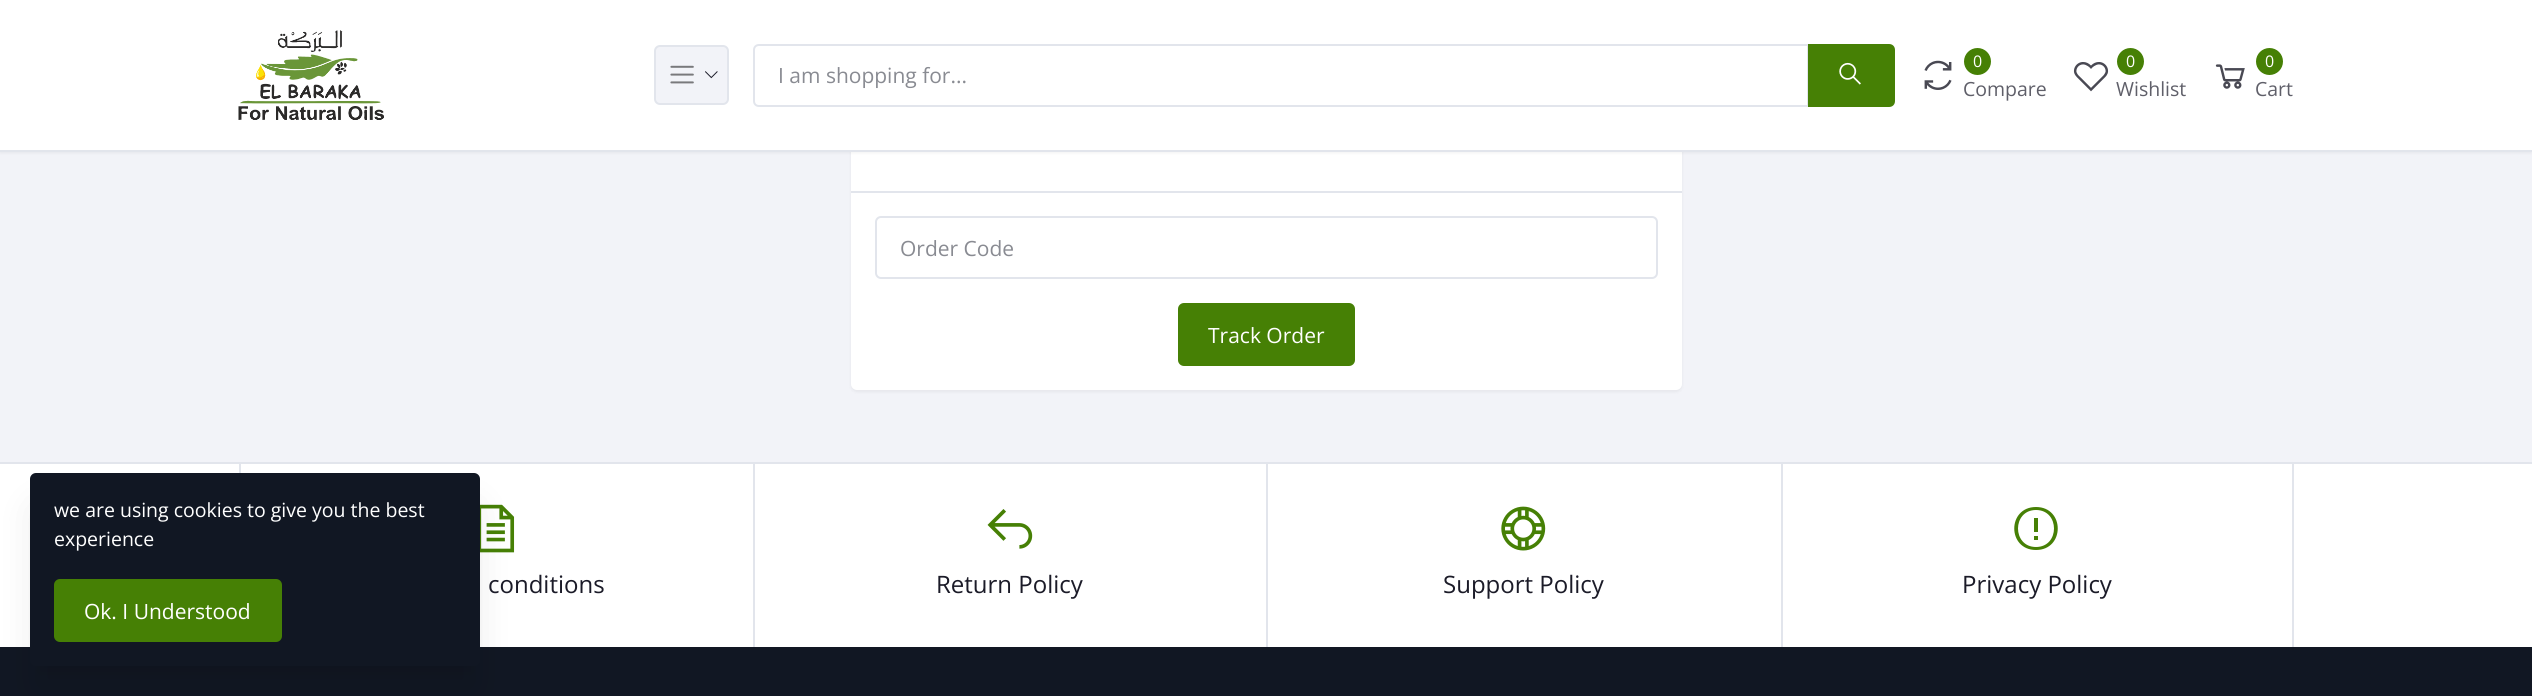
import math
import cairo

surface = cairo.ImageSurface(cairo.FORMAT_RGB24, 2532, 696)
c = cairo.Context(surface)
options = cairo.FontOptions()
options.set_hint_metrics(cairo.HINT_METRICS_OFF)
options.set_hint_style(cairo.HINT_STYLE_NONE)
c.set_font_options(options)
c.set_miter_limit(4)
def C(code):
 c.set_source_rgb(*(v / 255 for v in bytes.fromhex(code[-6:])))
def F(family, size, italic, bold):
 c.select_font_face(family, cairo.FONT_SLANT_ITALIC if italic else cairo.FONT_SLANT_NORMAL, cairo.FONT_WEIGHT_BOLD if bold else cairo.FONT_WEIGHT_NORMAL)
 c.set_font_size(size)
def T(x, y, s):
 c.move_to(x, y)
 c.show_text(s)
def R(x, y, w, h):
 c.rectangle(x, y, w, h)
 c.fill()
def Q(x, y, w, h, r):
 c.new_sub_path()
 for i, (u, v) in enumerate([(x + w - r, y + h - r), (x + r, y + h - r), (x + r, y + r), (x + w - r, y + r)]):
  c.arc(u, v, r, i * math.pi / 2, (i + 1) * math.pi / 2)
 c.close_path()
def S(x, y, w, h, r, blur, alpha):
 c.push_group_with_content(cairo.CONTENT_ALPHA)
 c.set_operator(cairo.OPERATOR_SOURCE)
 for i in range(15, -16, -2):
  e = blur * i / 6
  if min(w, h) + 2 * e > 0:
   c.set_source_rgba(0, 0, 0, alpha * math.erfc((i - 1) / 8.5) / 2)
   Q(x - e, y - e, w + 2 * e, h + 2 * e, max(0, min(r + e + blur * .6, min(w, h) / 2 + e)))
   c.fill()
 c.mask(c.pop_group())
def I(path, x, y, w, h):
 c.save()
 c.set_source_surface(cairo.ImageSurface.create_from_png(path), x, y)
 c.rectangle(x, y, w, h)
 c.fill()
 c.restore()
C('f2f3f8')
c.paint()
C('ffffff')
R(0,464,2532,183)
C('e2e5ec')
R(239,464,2,9)
I('8.png',480,504,35,49)
C('111723')
R(0,647,2532,49)
C('000000')
S(38,495,435,179,0,7.5,.04)
C('e2e5ec')
R(0,462,2532,2)
C('000000')
S(38,510,435,179,0,19,.1)
C('111723')
Q(30,473,450,193,6)
c.fill()
F('Open Sans',19.5,0,0)
C('ffffff')
T(54,517,'we are using cookies to give you the best')
T(54,546,'experience')
C('468005')
Q(55,580,226,61,5)
c.fill_preserve()
c.stroke()
F('Open Sans',21,0,0)
C('ffffff')
T(84,619,'Ok. I Understood')
C('000000')
S(851,110,831,282,6,1.5,.05)
C('ffffff')
Q(851,108,831,282,6)
c.fill()
C('000000')
S(0,2,2532,151,0,1.5,.05)
C('ffffff')
R(0,0,2532,150)
C('e2e5ec')
R(0,150,2532,2)
I('1.png',238,30,146,90)
C('f2f3f8')
Q(655,46,73,58,5)
c.fill_preserve()
C('e2e5ec')
c.stroke()
I('2.png',670,65,24,19)
I('3.png',705,71,13,8)
c.new_path()
c.move_to(759,45)
c.line_to(1808,45)
c.line_to(1808,106)
c.line_to(759,106)
c.curve_to(756,106,754,104,754,101)
c.line_to(754,50)
c.curve_to(754,47,756,45,759,45)
c.close_path()
c.stroke()
C('898b92')
T(778,83,'I am shopping for...')
C('468005')
c.new_path()
c.move_to(1809,45)
c.line_to(1889,45)
c.curve_to(1892,45,1894,47,1894,50)
c.line_to(1894,101)
c.curve_to(1894,104,1892,106,1889,106)
c.line_to(1809,106)
c.close_path()
c.fill_preserve()
c.stroke()
I('4.png',1839,62,22,23)
I('5.png',1924,60,28,30)
c.arc(1977.5,61.5,13.5,0,2 * math.pi)
c.fill()
F('Open Sans',16,0,0)
C('ffffff')
T(1973,67,'0')
F('Open Sans',19.5,0,0)
C('5f5f69')
T(1963,96,'Compare')
I('6.png',2073,62,36,30)
C('468005')
c.arc(2130.5,61.5,13.5,0,2 * math.pi)
c.fill()
F('Open Sans',16,0,0)
C('ffffff')
T(2126,67,'0')
F('Open Sans',19.5,0,0)
C('5f5f69')
T(2116,96,'Wishlist')
I('7.png',2215,64,30,25)
C('468005')
c.arc(2269.5,61.5,13.5,0,2 * math.pi)
c.fill()
F('Open Sans',16,0,0)
C('ffffff')
T(2265,67,'0')
F('Open Sans',19.5,0,0)
C('5f5f69')
T(2255,96,'Cart')
C('e2e5ec')
R(851,191,831,2)
Q(876,217,781,61,5)
c.stroke()
F('Open Sans',21,0,0)
C('898b92')
T(900,256,'Order Code')
C('468005')
Q(1179,304,175,61,5)
c.fill_preserve()
c.stroke()
C('ffffff')
T(1208,343,'Track Order')
F('Open Sans',24,0,0)
C('1b1b28')
T(488,593,'conditions')
C('e2e5ec')
R(753,464,2,183)
I('9.png',987,509,46,40)
C('1b1b28')
T(936,593,'Return Policy')
C('e2e5ec')
R(1266,464,2,183)
I('10.png',1501,506,45,45)
C('1b1b28')
T(1443,593,'Support Policy')
C('e2e5ec')
R(2292,464,2,183)
R(1781,464,2,183)
C('468005')
c.new_path()
c.move_to(2036,507)
c.curve_to(2007,507,2007,550,2036,550)
c.curve_to(2065,550,2065,507,2036,507)
c.close_path()
c.move_to(2036,510)
c.curve_to(2060,510,2060,547,2036,547)
c.curve_to(2012,547,2012,510,2036,510)
c.close_path()
c.move_to(2034,518)
c.line_to(2034,532)
c.line_to(2038,532)
c.line_to(2038,518)
c.close_path()
c.move_to(2034,536)
c.line_to(2034,540)
c.line_to(2038,540)
c.line_to(2038,536)
c.close_path()
c.fill()
C('1b1b28')
T(1962,593,'Privacy Policy')
surface.write_to_png('o.png')
